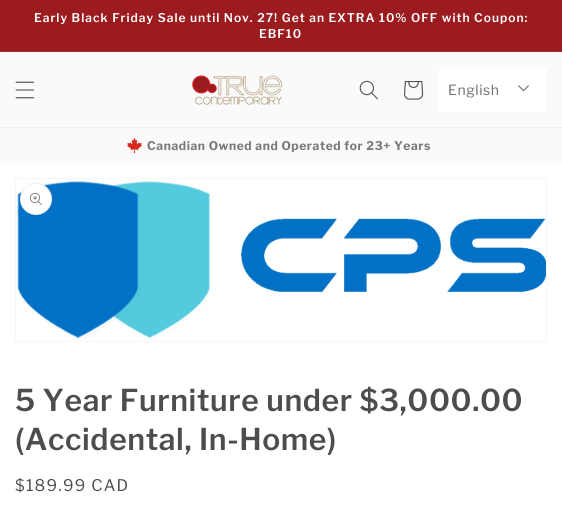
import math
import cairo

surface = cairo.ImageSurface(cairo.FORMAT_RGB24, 562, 505)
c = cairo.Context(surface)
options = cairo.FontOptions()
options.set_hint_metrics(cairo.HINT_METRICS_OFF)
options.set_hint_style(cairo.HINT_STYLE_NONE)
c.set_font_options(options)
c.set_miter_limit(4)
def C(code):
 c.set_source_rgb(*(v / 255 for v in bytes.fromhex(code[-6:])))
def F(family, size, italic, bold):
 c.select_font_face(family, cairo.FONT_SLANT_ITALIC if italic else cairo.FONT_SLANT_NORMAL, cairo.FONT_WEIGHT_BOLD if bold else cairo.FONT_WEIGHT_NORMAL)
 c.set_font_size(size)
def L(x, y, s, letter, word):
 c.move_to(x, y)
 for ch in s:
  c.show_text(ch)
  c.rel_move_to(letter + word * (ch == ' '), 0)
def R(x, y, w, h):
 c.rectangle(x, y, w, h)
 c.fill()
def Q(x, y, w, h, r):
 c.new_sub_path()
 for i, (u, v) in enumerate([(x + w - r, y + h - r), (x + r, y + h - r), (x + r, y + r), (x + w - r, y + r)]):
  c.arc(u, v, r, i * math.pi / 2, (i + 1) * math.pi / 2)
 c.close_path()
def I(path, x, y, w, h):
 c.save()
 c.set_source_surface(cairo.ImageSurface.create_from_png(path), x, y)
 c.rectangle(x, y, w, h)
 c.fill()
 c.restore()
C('ffffff')
c.paint()
C('9c1b1f')
R(0,0,562,51)
C('a42d31')
R(0,51,562,1)
F('Libre Franklin SemiBold',12,0,0)
C('ffffff')
L(34,22,'Early Black Friday Sale until Nov. 27! Get an EXTRA 10% OFF with Coupon:',1,0)
L(259,38,'EBF10',1,0)
C('fafafa')
R(0,52,562,75)
C('ececec')
R(0,127,562,1)
I('1.png',15,81,20,18)
I('2.png',192,75,90,30)
I('3.png',359,80,19,20)
I('4.png',404,81,20,19)
C('ffffff')
Q(438,68,109,44,4)
c.fill()
F('Libre Franklin',14,0,0)
C('6e6e6e')
L(448,95,'English',.6,0)
I('5.png',518,85,11,7)
C('fafafa')
R(0,128,562,36)
I('6.png',127,138,15,15)
F('Libre Franklin',12,0,1)
C('787878')
L(147,150,'Canadian Owned and Operated for 23+ Years',.6,0)
c.rectangle(15.5,178.5,531,163)
C('f6f6f6')
c.set_line_width(1)
c.stroke()
I('7.png',16,181,530,159)
C('ffffff')
c.arc(36,199,16,0,2 * math.pi)
c.fill()
c.arc(36,199,15.5,0,2 * math.pi)
c.set_source_rgba(0.302,0.302,0.302,0.1)
c.stroke()
I('8.png',30,193,12,12)
F('Libre Franklin SemiBold',30,0,0)
C('4d4d4d')
L(15,411,'5 Year Furniture under $3,000.00',.6,0)
L(15,450,'(Accidental, In-Home)',.6,0)
F('Libre Franklin',16,0,0)
L(15,491,'$189.99 CAD',1.25,0)
surface.write_to_png('o.png')
